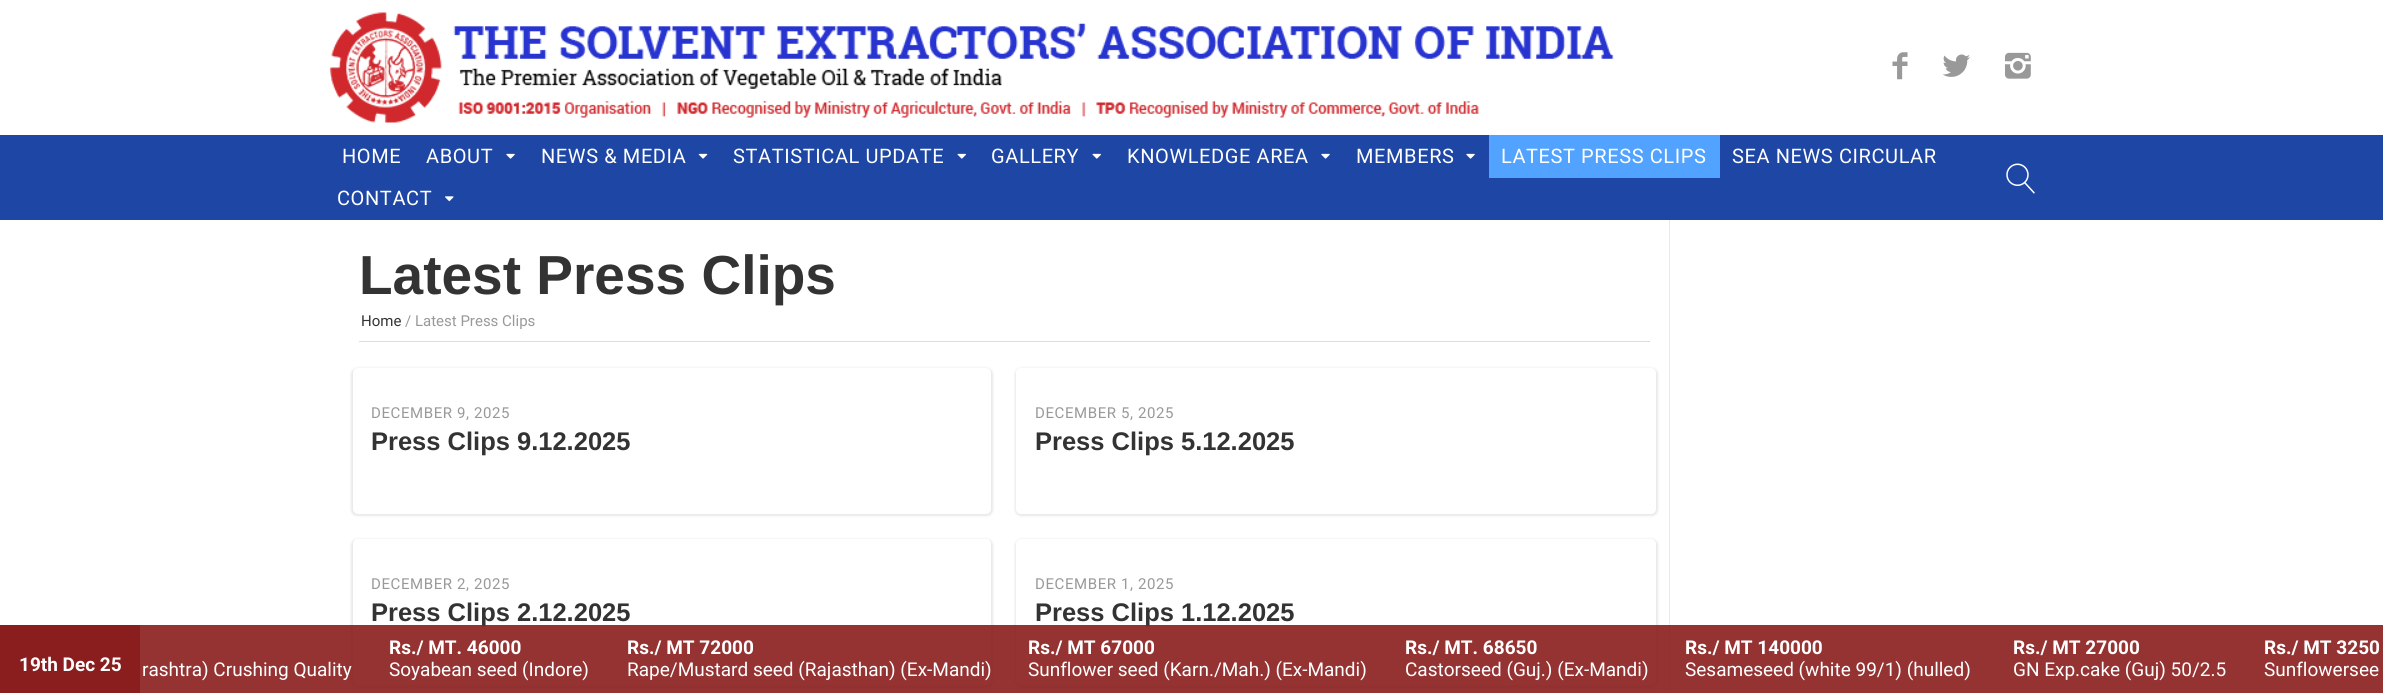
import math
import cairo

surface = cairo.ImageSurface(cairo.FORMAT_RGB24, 2383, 693)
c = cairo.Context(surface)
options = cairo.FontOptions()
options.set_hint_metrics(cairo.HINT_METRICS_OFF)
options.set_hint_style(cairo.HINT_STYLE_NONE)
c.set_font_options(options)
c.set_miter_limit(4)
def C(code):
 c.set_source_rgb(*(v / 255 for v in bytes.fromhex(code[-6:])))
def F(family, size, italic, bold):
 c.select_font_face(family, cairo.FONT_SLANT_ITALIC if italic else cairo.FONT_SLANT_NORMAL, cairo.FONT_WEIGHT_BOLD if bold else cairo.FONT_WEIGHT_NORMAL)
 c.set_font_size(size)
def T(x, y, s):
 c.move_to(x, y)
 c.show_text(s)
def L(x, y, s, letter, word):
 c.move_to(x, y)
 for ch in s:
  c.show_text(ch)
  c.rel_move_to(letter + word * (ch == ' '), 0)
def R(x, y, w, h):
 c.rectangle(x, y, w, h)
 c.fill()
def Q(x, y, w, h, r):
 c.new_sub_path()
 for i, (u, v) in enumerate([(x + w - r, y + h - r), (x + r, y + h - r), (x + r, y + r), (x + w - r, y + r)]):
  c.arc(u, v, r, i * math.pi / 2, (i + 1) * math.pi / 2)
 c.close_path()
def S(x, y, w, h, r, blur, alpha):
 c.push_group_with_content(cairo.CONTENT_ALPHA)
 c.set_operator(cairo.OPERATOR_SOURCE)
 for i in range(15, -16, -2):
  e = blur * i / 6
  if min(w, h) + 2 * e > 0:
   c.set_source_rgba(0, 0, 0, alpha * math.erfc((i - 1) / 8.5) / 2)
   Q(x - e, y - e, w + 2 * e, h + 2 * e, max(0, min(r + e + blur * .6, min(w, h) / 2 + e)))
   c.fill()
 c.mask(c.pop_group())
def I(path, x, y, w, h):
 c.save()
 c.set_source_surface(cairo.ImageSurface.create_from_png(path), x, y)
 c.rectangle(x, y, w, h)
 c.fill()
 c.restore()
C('ffffff')
c.paint()
I('1.png',330,12,1284,111)
I('2.png',1892,52,16,28)
I('3.png',1942,54,28,23)
I('4.png',2005,52,26,27)
C('1e46a5')
R(0,135,2383,85)
F('Roboto',20,0,0)
C('ffffff')
L(342,163,'HOME',.6,0)
L(426,163,'ABOUT',.6,0)
I('5.png',506,153,9,6)
L(541,163,'NEWS & MEDIA',.6,0)
I('6.png',698,153,10,6)
L(733,163,'STATISTICAL UPDATE',.6,0)
I('7.png',957,153,9,6)
L(991,163,'GALLERY',.6,0)
I('7.png',1092,153,9,6)
L(1127,163,'KNOWLEDGE AREA',.6,0)
I('5.png',1321,153,9,6)
L(1356,163,'MEMBERS',.6,0)
I('5.png',1466,153,9,6)
C('51a3ff')
R(1489,135,231,43)
C('ffffff')
L(1501,163,'LATEST PRESS CLIPS',.6,0)
L(1732,163,'SEA NEWS CIRCULAR',.6,0)
L(337,205,'CONTACT',.6,0)
I('8.png',445,196,9,6)
I('9.png',2006,163,29,31)
C('dddddd')
R(359,341,1291,1)
F('Liberation Sans',55,0,1)
C('333333')
T(359,294,'Latest Press Clips')
F('Roboto',15,0,0)
T(361,326,'Home')
C('999999')
T(405,326,'/ Latest Press Clips')
C('000000')
S(351,368,642,148,6,1,.09)
C('ffffff')
Q(353,368,638,146,5)
c.fill()
C('999999')
L(371,418,'DECEMBER 9, 2025',.6,0)
F('Liberation Sans',25.5,0,1)
C('333333')
T(371,450,'Press Clips 9.12.2025')
C('000000')
S(1015,368,643,148,6,1,.09)
C('ffffff')
Q(1016,368,640,146,5)
c.fill()
F('Roboto',15,0,0)
C('999999')
L(1035,418,'DECEMBER 5, 2025',.6,0)
F('Liberation Sans',25.5,0,1)
C('333333')
T(1035,450,'Press Clips 5.12.2025')
C('000000')
S(351,539,642,149,6,1,.09)
C('ffffff')
Q(353,539,638,146,5)
c.fill()
F('Roboto',15,0,0)
C('999999')
L(371,589,'DECEMBER 2, 2025',.6,0)
F('Liberation Sans',25.5,0,1)
C('333333')
T(371,621,'Press Clips 2.12.2025')
C('000000')
S(1015,539,643,149,6,1,.09)
C('ffffff')
Q(1016,539,640,146,5)
c.fill()
F('Roboto',15,0,0)
C('999999')
L(1035,589,'DECEMBER 1, 2025',.6,0)
F('Liberation Sans',25.5,0,1)
C('333333')
T(1035,621,'Press Clips 1.12.2025')
C('eaeaea')
R(1669,220,1,473)
c.set_source_rgba(0.541,0.114,0.114,0.9)
R(140,625,2243,68)
C('8a1d1d')
R(0,625,140,68)
F('Roboto',19,0,1)
C('ffffff')
T(19,671,'19th Dec 25')
F('Roboto',19,0,0)
T(142,676,'rashtra) Crushing Quality')
F('Roboto',19,0,1)
T(389,654,'Rs./ MT. 46000')
F('Roboto',19,0,0)
T(389,676,'Soyabean seed (Indore)')
F('Roboto',19,0,1)
T(627,654,'Rs./ MT 72000')
F('Roboto',19,0,0)
T(627,676,'Rape/Mustard seed (Rajasthan) (Ex-Mandi)')
F('Roboto',19,0,1)
T(1028,654,'Rs./ MT 67000')
F('Roboto',19,0,0)
T(1028,676,'Sunflower seed (Karn./Mah.) (Ex-Mandi)')
F('Roboto',19,0,1)
T(1405,654,'Rs./ MT. 68650')
F('Roboto',19,0,0)
T(1405,676,'Castorseed (Guj.) (Ex-Mandi)')
F('Roboto',19,0,1)
T(1685,654,'Rs./ MT 140000')
F('Roboto',19,0,0)
T(1685,676,'Sesameseed (white 99/1) (hulled)')
F('Roboto',19,0,1)
T(2013,654,'Rs./ MT 27000')
F('Roboto',19,0,0)
T(2013,676,'GN Exp.cake (Guj) 50/2.5')
F('Roboto',19,0,1)
T(2264,654,'Rs./ MT 3250')
F('Roboto',19,0,0)
T(2264,676,'Sunflowersee')
surface.write_to_png('o.png')
